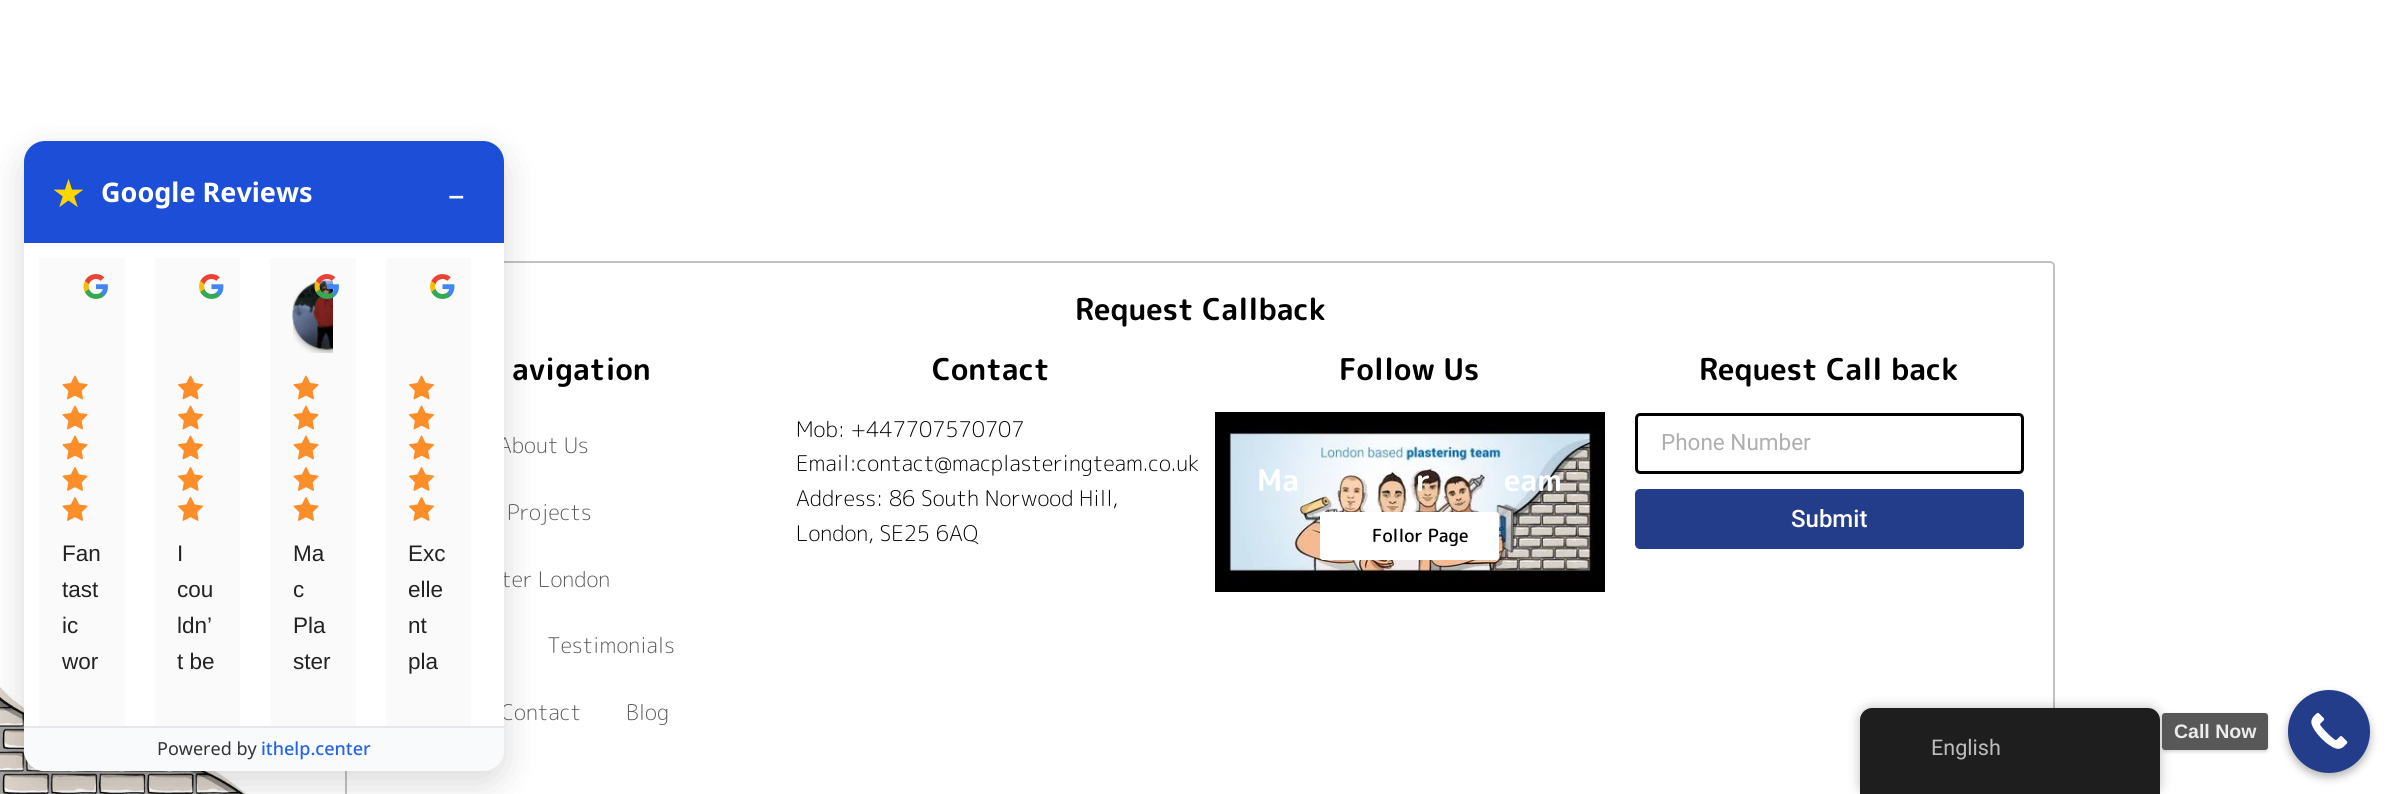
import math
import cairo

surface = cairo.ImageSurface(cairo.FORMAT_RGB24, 2400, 794)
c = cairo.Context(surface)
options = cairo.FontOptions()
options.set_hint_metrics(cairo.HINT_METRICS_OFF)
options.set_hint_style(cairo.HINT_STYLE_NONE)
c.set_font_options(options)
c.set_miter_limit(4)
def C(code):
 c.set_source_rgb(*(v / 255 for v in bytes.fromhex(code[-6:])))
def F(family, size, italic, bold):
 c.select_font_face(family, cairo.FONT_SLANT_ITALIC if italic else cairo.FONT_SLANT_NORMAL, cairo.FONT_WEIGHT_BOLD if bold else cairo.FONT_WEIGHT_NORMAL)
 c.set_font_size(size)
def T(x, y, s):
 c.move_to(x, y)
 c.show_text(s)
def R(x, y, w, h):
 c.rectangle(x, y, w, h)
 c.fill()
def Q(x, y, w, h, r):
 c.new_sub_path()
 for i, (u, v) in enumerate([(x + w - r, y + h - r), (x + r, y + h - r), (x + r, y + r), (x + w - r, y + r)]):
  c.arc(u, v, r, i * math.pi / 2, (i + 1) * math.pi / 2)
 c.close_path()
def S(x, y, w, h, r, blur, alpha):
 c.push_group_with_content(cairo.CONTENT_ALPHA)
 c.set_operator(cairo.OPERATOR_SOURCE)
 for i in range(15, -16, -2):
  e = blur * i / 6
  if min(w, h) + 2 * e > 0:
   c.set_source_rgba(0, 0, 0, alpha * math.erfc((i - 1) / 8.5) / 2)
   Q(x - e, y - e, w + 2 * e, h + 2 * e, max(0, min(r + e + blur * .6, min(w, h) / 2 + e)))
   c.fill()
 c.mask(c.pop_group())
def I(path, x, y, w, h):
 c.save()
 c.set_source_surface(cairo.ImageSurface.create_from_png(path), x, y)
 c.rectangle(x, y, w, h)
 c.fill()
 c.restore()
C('ffffff')
c.paint()
I('9.png',0,686,247,108)
Q(346,262,1708,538,4)
C('c2c2c2')
c.stroke()
C('000000')
S(24,153,480,630,21,18,.15)
F('Rounded Mplus 1c Light',21.6,0,0)
C('5c5c5c')
T(498,453,'About Us')
T(501,587,'ter London')
T(501,720,'Contact')
C('ffffff')
Q(24,141,480,630,21)
c.fill()
C('1d4ed8')
c.new_path()
c.move_to(45,141)
c.line_to(483,141)
c.curve_to(494.5,141,504,150.5,504,162)
c.line_to(504,243)
c.line_to(24,243)
c.line_to(24,162)
c.curve_to(24,150.5,33.5,141,45,141)
c.close_path()
c.fill()
F('DejaVu Sans',39,0,0)
C('ffd700')
T(51,207,'★')
F('Noto Sans',27,0,1)
C('ffffff')
T(101,202,'Google Reviews')
F('Noto Sans',33,0,0)
T(448,206,'–')
C('fafafa')
R(39,258,86,468)
I('1.png',83,274,25,25)
I('2.png',62,375,26,25)
I('2.png',62,405,26,25)
I('2.png',62,435,26,25)
I('3.png',62,467,26,24)
I('3.png',62,497,26,24)
F('Liberation Sans',22.5,0,0)
C('222222')
T(62,561,'Fan')
T(62,597,'tast')
T(62,633,'ic')
T(62,669,'wor')
C('fafafa')
R(155,258,85,468)
I('4.png',199,274,25,25)
I('5.png',178,375,25,25)
I('5.png',178,405,25,25)
I('5.png',178,435,25,25)
I('6.png',178,467,25,24)
I('6.png',178,497,25,24)
C('222222')
T(177,561,'I')
T(177,597,'cou')
T(177,633,'ldn’')
T(177,669,'t be')
C('fafafa')
R(270,258,86,468)
c.save()
c.rectangle(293,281,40,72)
c.clip()
C('000000')
S(293,284,69,69,34.5,3,.24)
S(293,281,69,69,34.5,1.5,.12)
c.restore()
I('7.png',292,280,41,70)
I('8.png',314,274,25,25)
I('2.png',293,375,26,25)
I('2.png',293,405,26,25)
I('2.png',293,435,26,25)
I('3.png',293,467,26,24)
I('3.png',293,497,26,24)
C('222222')
T(293,561,'Ma')
T(293,597,'c')
T(293,633,'Pla')
T(293,669,'ster')
C('fafafa')
R(386,258,85,468)
I('4.png',430,274,25,25)
I('5.png',409,375,25,25)
I('5.png',409,405,25,25)
I('5.png',409,435,25,25)
I('6.png',409,467,25,24)
I('6.png',409,497,25,24)
C('222222')
T(408,561,'Exc')
T(408,597,'elle')
T(408,633,'nt')
T(408,669,'pla')
C('f9fafb')
c.new_path()
c.move_to(24,726)
c.line_to(504,726)
c.line_to(504,750)
c.curve_to(504,761.5,494.5,771,483,771)
c.line_to(45,771)
c.curve_to(33.5,771,24,761.5,24,750)
c.close_path()
c.fill()
C('e5e7eb')
R(24,726,480,2)
F('Noto Sans',18,0,0)
C('333333')
T(157,755,'Powered by')
F('Noto Sans Medium',18,0,0)
C('2563eb')
T(261,755,'ithelp.center')
F('Rounded Mplus 1c Bold',30,0,1)
C('000000')
T(1075,320,'Request Callback')
T(512,380,'avigation')
F('Rounded Mplus 1c Light',21.6,0,0)
C('5c5c5c')
T(507,520,'Projects')
T(547,653,'Testimonials')
T(626,720,'Blog')
F('Rounded Mplus 1c Bold',30,0,1)
C('000000')
T(932,380,'Contact')
F('Rounded Mplus 1c Light',21.6,0,0)
T(796,437,'Mob: +447707570707')
T(796,471,'Email:contact@macplasteringteam.co.uk')
T(796,506,'Address: 86 South Norwood Hill,')
T(796,541,'London, SE25 6AQ')
F('Rounded Mplus 1c Bold',30,0,1)
T(1339,380,'Follow Us')
I('10.png',1215,412,390,180)
C('ffffff')
T(1257,491,'Ma')
T(1416,491,'r')
T(1504,491,'eam')
Q(1320,512,179,48,3)
c.fill()
F('Rounded Mplus 1c Medium',18,0,0)
C('000000')
T(1372,542,'Follor Page')
F('Rounded Mplus 1c Bold',30,0,1)
T(1699,380,'Request Call back')
Q(1636.5,414.5,386,58,3.5)
c.set_line_width(3)
c.stroke()
F('Roboto',22.5,0,0)
C('afafaf')
T(1661,450,'Phone Number')
C('233d8a')
Q(1635,489,389,60,5)
c.fill()
F('Roboto Medium',24,0,0)
C('ffffff')
T(1791,527,'Submit')
C('000000')
S(2288,695,82,82,41,4.5,.3)
C('233d8a')
Q(2288,690,82,83,41)
c.fill()
I('11.png',2311,712,37,37)
C('000000')
S(1860,708,300,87,12,6,.25)
C('1e1e1e')
c.new_path()
c.move_to(1872,708)
c.line_to(2148,708)
c.curve_to(2154.5,708,2160,713.5,2160,720)
c.line_to(2160,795)
c.line_to(1860,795)
c.line_to(1860,720)
c.curve_to(1860,713.5,1865.5,708,1872,708)
c.close_path()
c.fill()
c.save()
c.set_fill_rule(cairo.FILL_RULE_EVEN_ODD)
c.new_path()
c.move_to(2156,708)
c.line_to(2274,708)
c.line_to(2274,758)
c.line_to(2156,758)
c.close_path()
c.move_to(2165,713)
c.line_to(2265,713)
c.curve_to(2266.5,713,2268,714.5,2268,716)
c.line_to(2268,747)
c.curve_to(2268,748.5,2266.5,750,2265,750)
c.line_to(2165,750)
c.curve_to(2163.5,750,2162,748.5,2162,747)
c.line_to(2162,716)
c.curve_to(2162,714.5,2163.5,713,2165,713)
c.close_path()
c.clip()
C('000000')
S(2162,714,106,38,3,1.5,.15)
c.restore()
c.set_source_rgba(0.275,0.275,0.275,0.9)
Q(2162,713,106,37,3)
c.fill()
F('Liberation Sans',19.5,0,1)
C('ececec')
T(2174,738,'Call Now')
F('Roboto',21.6,0,0)
C('bdbdbd')
T(1931,755,'English')
surface.write_to_png('o.png')
